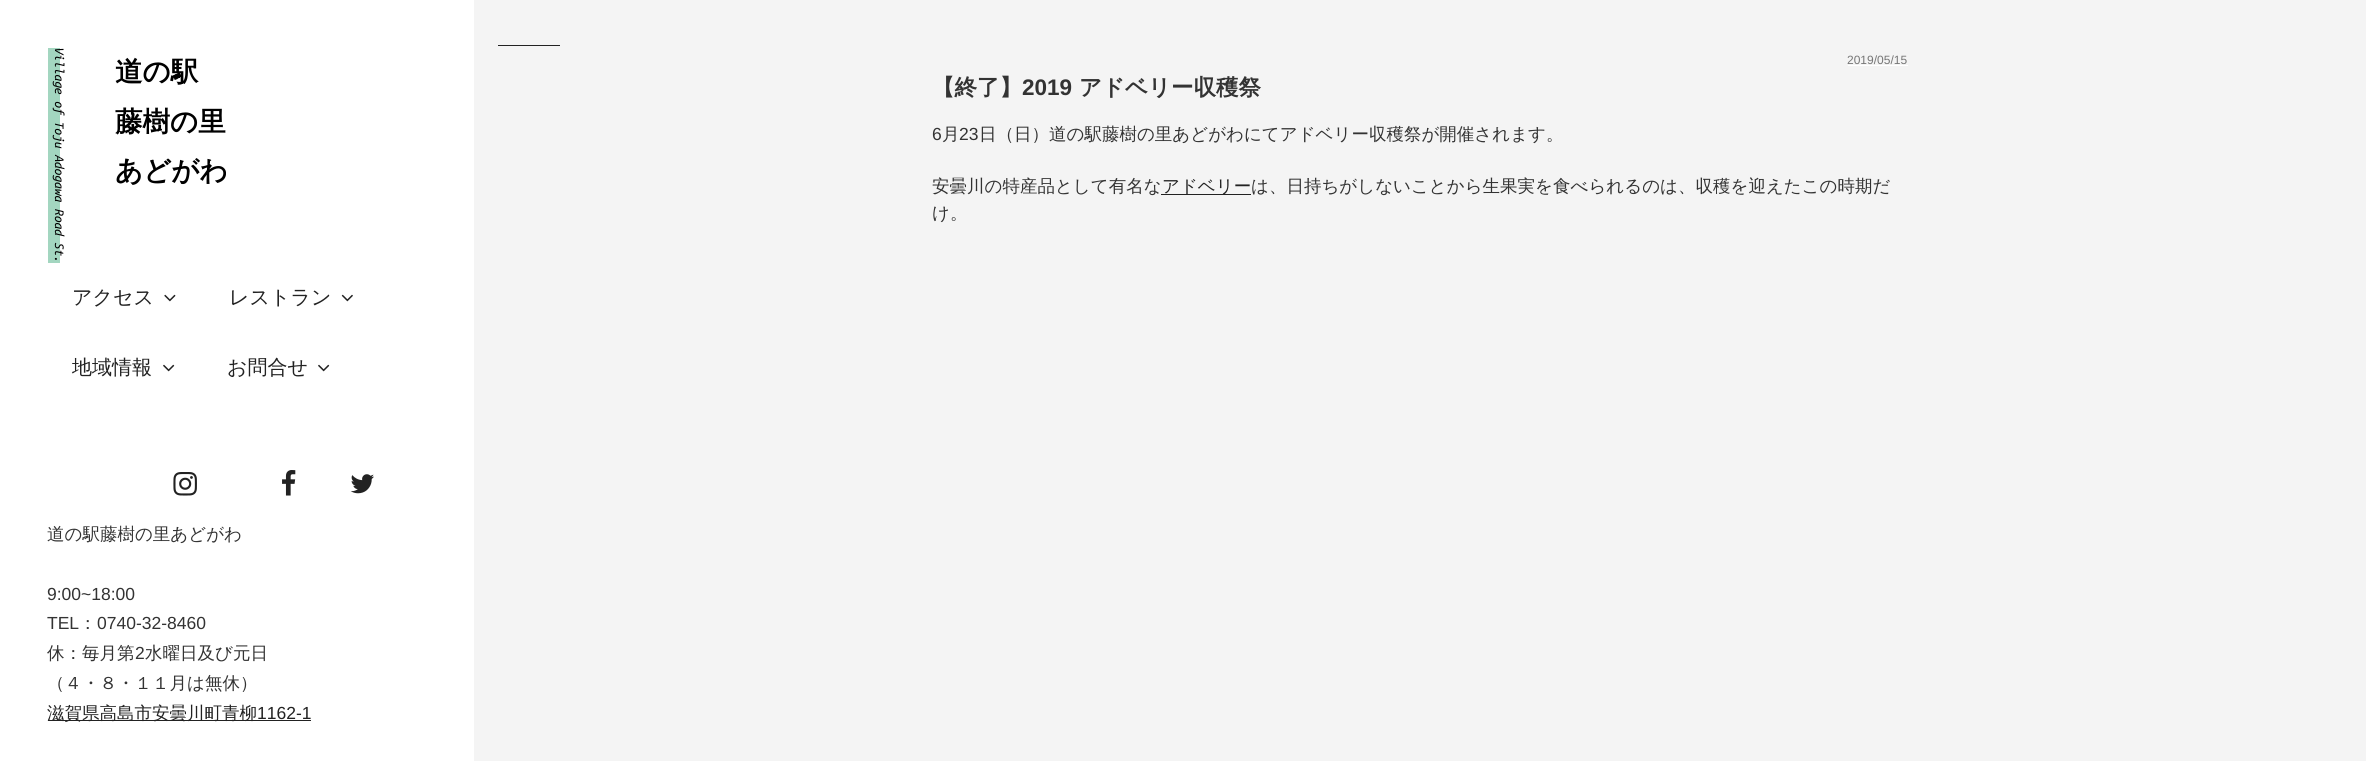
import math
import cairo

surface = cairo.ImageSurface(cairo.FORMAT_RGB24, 2366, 761)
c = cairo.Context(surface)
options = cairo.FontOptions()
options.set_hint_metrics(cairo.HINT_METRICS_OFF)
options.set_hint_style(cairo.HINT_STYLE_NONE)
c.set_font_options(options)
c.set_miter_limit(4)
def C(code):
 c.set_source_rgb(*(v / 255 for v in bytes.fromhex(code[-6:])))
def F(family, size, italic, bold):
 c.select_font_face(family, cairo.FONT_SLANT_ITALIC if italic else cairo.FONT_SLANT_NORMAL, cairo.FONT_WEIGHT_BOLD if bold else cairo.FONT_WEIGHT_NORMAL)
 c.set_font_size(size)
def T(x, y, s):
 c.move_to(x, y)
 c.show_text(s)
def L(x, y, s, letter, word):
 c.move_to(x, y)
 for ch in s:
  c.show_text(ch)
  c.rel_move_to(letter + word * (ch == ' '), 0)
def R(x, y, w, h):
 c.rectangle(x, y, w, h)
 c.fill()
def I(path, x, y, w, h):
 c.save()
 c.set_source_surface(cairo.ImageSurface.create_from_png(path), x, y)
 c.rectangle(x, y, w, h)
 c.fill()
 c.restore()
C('ffffff')
c.paint()
C('a3d6c0')
R(48,48,12,215)
F('Ubuntu Mono',13.75,1,0)
C('000000')
c.save()
c.translate(55,47)
c.rotate(90 * math.pi / 180)
L(0,0,'Village of Toju Adogawa Road St.',-.15,0)
c.restore()
F('WenQuanYi Zen Hei',27.5,0,1)
T(115,81,'道の駅')
T(115,131,'藤樹の里')
T(115,180,'あどがわ')
F('WenQuanYi Zen Hei Medium',20,0,0)
C('222222')
T(72,304,'アクセス')
I('1.png',164,294,12,8)
T(229,304,'レストラン')
I('2.png',341,294,12,8)
T(72,374,'地域情報')
I('3.png',163,364,12,8)
T(227,374,'お問合せ')
I('3.png',318,364,12,8)
I('4.png',173,472,24,24)
I('5.png',282,470,14,26)
I('6.png',350,474,24,20)
F('WenQuanYi Zen Hei Medium',17.5,0,0)
C('333333')
T(47,540,'道の駅藤樹の里あどがわ')
F('Liberation Sans',17.5,0,0)
T(47,600,'9:00~18:00')
T(47,629,'TEL')
F('WenQuanYi Zen Hei Medium',17.5,0,0)
T(79,629,'：')
F('Liberation Sans',17.5,0,0)
T(97,629,'0740-32-8460')
F('WenQuanYi Zen Hei Medium',17.5,0,0)
T(47,659,'休：毎月第')
F('Liberation Sans',17.5,0,0)
T(135,659,'2')
F('WenQuanYi Zen Hei Medium',17.5,0,0)
T(145,659,'水曜日及び元日')
T(47,689,'（４・８・１１月は無休）')
C('222222')
R(48,720,263,1)
T(47,719,'滋賀県高島市安曇川町青柳')
F('Liberation Sans',17.5,0,0)
T(257,719,'1162-1')
C('f4f4f4')
R(474,0,1892,761)
C('222222')
R(498,45,62,1)
F('Liberation Sans',12,0,0)
C('767676')
T(1847,64,'2019/05/15')
C('ffffff')
R(1848,65,60,1)
F('WenQuanYi Zen Hei',22.5,0,1)
C('333333')
T(932,95,'【終了】')
F('Liberation Sans',22.5,0,1)
T(1022,95,'2019')
F('WenQuanYi Zen Hei',22.5,0,1)
T(1079,95,'アドベリー収穫祭')
F('Liberation Sans',17.5,0,0)
T(932,140,'6')
F('WenQuanYi Zen Hei Medium',17.5,0,0)
T(942,140,'月')
F('Liberation Sans',17.5,0,0)
T(959,140,'23')
F('WenQuanYi Zen Hei Medium',17.5,0,0)
T(979,140,'日（日）道の駅藤樹の里あどがわにてアドベリー収穫祭が開催されます。')
T(932,192,'安曇川の特産品として有名な')
C('222222')
R(1161,194,90,1)
T(1162,192,'アドベリー')
C('333333')
T(1251,192,'は、日持ちがしないことから生果実を食べられるのは、収穫を迎えたこの時期だ')
T(932,219,'け。')
surface.write_to_png('o.png')
